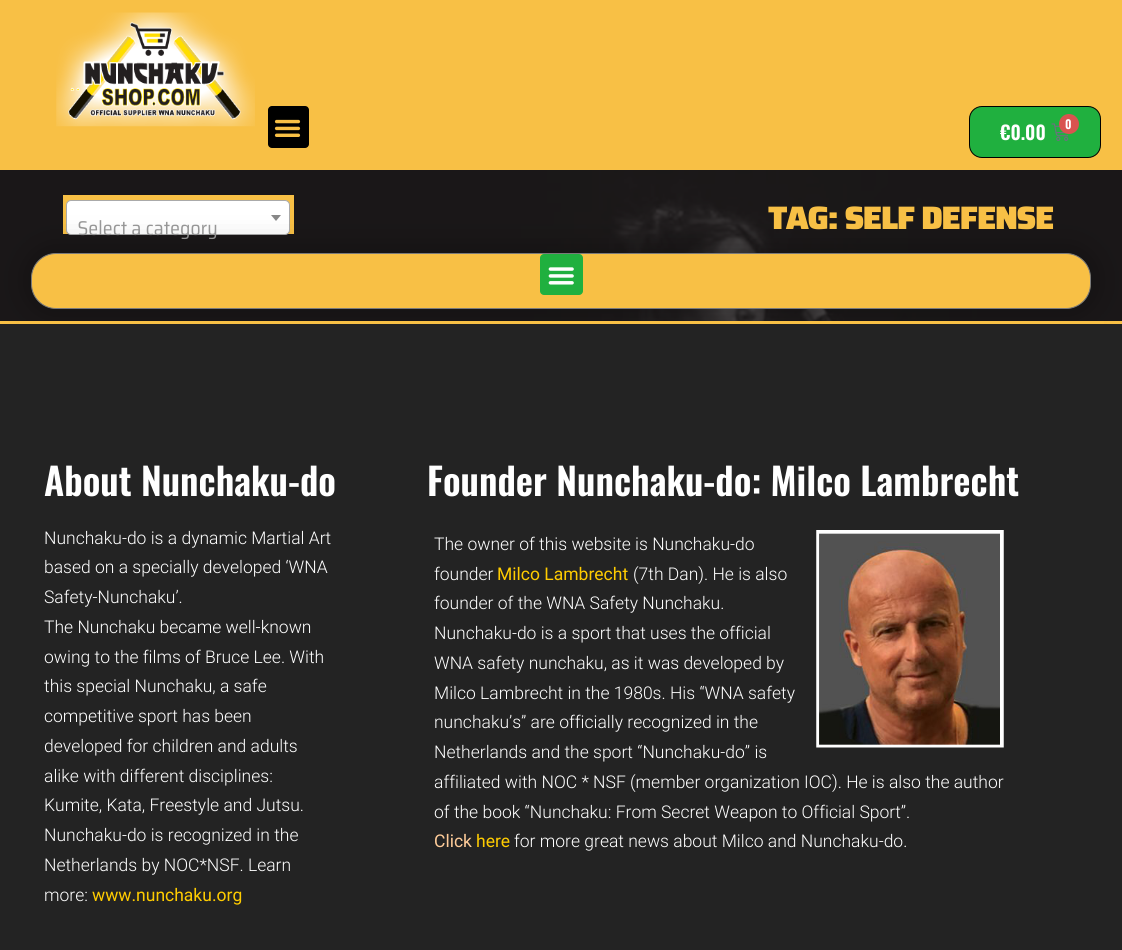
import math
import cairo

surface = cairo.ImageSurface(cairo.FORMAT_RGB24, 1122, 950)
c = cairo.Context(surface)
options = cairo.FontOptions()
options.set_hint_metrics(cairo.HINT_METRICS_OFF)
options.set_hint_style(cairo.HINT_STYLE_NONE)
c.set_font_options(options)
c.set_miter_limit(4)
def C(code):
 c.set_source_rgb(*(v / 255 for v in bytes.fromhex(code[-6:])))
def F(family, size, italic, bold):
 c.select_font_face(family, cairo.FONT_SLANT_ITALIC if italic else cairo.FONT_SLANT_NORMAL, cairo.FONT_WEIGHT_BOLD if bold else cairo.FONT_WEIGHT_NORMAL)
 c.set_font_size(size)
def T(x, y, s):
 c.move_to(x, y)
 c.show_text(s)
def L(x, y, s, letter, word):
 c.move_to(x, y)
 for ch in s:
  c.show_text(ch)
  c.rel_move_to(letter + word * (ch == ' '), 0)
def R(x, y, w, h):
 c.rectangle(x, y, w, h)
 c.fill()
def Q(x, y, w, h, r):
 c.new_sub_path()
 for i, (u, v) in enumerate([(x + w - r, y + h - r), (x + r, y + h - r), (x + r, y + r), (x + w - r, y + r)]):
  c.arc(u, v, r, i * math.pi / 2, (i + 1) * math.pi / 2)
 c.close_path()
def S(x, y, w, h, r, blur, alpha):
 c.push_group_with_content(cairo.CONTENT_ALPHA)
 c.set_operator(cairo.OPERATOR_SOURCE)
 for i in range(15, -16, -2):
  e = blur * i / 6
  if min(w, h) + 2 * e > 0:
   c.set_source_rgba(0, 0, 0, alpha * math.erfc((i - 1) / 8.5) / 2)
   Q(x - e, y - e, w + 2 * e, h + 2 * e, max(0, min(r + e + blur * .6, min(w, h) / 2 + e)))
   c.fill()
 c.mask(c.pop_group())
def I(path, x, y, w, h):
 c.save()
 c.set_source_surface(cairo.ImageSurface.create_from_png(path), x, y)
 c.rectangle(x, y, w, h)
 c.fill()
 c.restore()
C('f8c045')
c.paint()
I('1.png',56,12,199,115)
C('000000')
Q(268,106,41,42,4)
c.fill()
I('2.png',274,119,27,18)
C('20b03f')
Q(969.5,106.5,131,51,12.5)
c.fill_preserve()
C('000000')
c.set_line_width(1)
c.stroke()
F('Oswald SemiBold',19,0,0)
C('ffffff')
T(1000,140,'€0.00')
I('3.png',1051,123,18,18)
C('d9534f')
c.arc(1069,124,10,0,2 * math.pi)
c.fill()
F('Oswald SemiBold',12,0,0)
C('ffffff')
T(1065,129,'0')
I('4.png',0,170,1122,151)
C('f8c045')
R(63,195,231,39)
C('ffffff')
Q(66.5,200.5,223,34,4.5)
c.fill_preserve()
C('aaaaaa')
c.stroke()
C('888888')
c.new_path()
c.move_to(271,215)
c.line_to(281,215)
c.line_to(276,221)
c.close_path()
c.fill()
I('6.png',78,220,139,20)
C('000000')
S(25,246,1073,69,31,14.5,.23)
C('f8c045')
Q(31.5,253.5,1059,55,24.5)
c.fill_preserve()
C('7a7a7a')
c.stroke()
C('20b03f')
Q(540,254,43,41,4)
c.fill()
I('5.png',548,267,26,18)
F('Saira Black',32.5,0,0)
C('f8c045')
L(768,229,'TAG: SELF DEFENSE',-1.4,0)
C('232323')
R(0,324,1122,626)
C('f8c045')
R(19,321,1085,3)
F('Oswald SemiBold',37.5,0,0)
C('ffffff')
T(44,496,'About Nunchaku-do')
F('Roboto Light',17.5,0,0)
T(44,544,'Nunchaku-do is a dynamic Martial Art')
T(44,573,'based on a specially developed ‘WNA')
T(44,603,'Safety-Nunchaku’.')
T(44,633,'The Nunchaku became well-known')
T(44,663,'owing to the films of Bruce Lee. With')
T(44,692,'this special Nunchaku, a safe')
T(44,722,'competitive sport has been')
T(44,752,'developed for children and adults')
T(44,782,'alike with different disciplines:')
T(44,811,'Kumite, Kata, Freestyle and Jutsu.')
T(44,841,'Nunchaku-do is recognized in the')
T(44,871,'Netherlands by NOC*NSF. Learn')
T(44,901,'more:')
F('Roboto',17.5,0,0)
C('ffcc00')
T(92,901,'www.nunchaku.org')
F('Oswald SemiBold',37.5,0,0)
C('ffffff')
T(427,496,'Founder Nunchaku-do: Milco Lambrecht')
F('Roboto Light',17.5,0,0)
T(434,550,'The owner of this website is Nunchaku-do')
I('7.png',816,530,188,218)
T(434,580,'founder')
F('Roboto',17.5,0,0)
C('ffcc00')
T(497,580,'Milco Lambrecht')
F('Roboto Light',17.5,0,0)
C('ffffff')
T(633,580,'(7th Dan). He is also')
T(434,609,'founder of the WNA Safety Nunchaku.')
T(434,639,'Nunchaku-do is a sport that uses the official')
T(434,669,'WNA safety nunchaku, as it was developed by')
T(434,699,'Milco Lambrecht in the 1980s. His “WNA safety')
T(434,728,'nunchaku’s” are officially recognized in the')
T(434,758,'Netherlands and the sport “Nunchaku-do” is')
T(434,788,'affiliated with NOC * NSF (member organization IOC). He is also the author')
T(434,818,'of the book “Nunchaku: From Secret Weapon to Official Sport”.')
F('Roboto',17.5,0,0)
C('ffcc99')
T(434,847,'Click')
C('ffcc00')
T(476,847,'here')
F('Roboto Light',17.5,0,0)
C('ffffff')
T(514,847,'for more great news about Milco and Nunchaku-do.')
surface.write_to_png('o.png')
